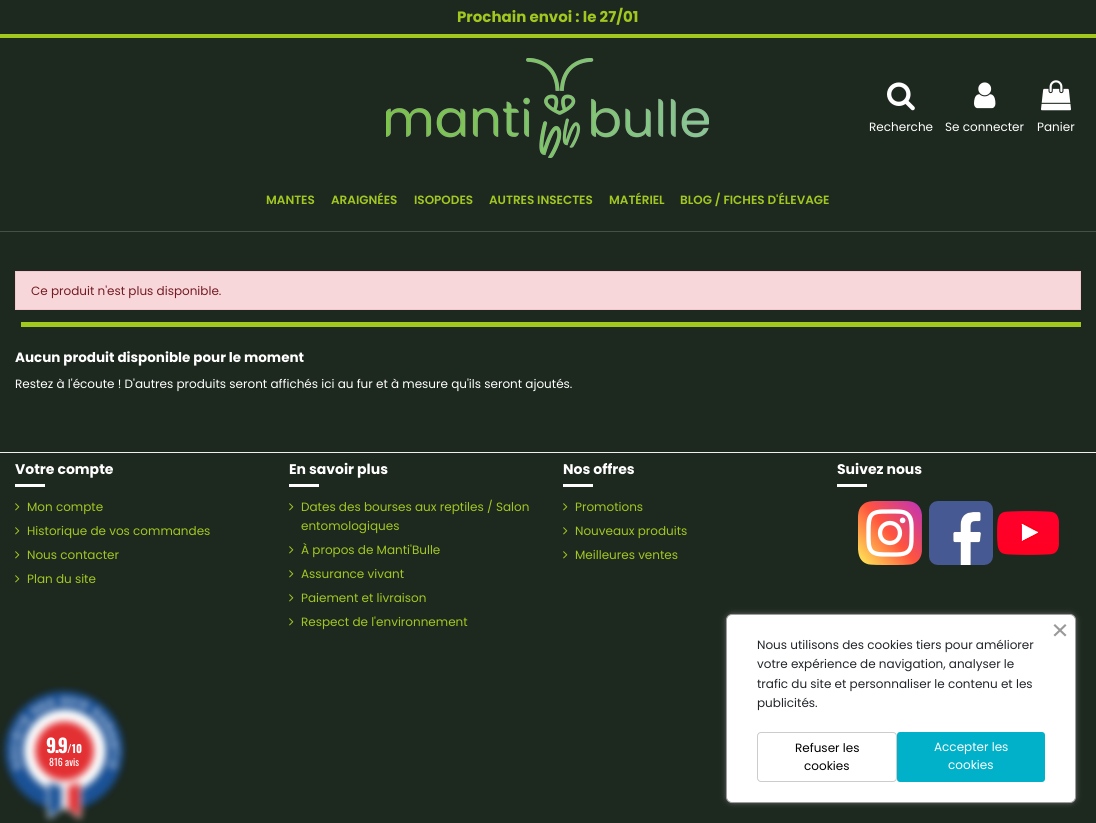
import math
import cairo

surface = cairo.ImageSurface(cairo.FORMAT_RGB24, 1096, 823)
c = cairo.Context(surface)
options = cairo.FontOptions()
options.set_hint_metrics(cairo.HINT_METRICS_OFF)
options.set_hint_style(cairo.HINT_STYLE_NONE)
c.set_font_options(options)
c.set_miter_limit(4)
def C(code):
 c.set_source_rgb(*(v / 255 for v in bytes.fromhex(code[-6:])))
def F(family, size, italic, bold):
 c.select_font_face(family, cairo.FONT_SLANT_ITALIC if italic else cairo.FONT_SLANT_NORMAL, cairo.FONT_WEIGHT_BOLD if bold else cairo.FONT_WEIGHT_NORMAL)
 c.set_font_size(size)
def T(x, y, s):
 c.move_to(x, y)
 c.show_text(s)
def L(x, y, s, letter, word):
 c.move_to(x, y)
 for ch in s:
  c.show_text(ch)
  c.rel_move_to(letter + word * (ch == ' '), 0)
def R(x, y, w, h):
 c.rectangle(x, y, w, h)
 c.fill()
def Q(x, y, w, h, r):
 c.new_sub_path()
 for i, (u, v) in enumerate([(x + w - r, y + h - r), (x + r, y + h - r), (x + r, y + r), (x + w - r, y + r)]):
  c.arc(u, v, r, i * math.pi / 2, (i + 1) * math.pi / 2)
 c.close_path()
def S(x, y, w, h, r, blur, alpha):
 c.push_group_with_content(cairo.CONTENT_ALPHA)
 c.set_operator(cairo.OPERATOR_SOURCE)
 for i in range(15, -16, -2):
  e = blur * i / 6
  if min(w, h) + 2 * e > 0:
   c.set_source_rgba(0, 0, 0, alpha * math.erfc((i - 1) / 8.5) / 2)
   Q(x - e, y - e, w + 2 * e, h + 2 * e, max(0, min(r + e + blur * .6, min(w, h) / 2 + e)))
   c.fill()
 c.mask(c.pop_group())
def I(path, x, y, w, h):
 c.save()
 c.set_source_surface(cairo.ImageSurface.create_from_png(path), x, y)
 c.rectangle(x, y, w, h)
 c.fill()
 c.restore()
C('1d281f')
c.paint()
c.save()
c.rectangle(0,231,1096,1)
c.clip()
C('c4c4c4')
S(0,223,1096,8,0,.5,1)
c.restore()
C('1d281f')
R(0,222,1096,1)
C('a2c820')
R(0,34,1096,4)
F('Poppins',15,0,1)
T(457,22,'Prochain envoi : le 27/01')
I('1.png',386,58,323,100)
I('2.png',887,82,28,29)
F('Poppins',12,0,0)
C('ffffff')
T(869,131,'Recherche')
I('3.png',974,82,22,27)
T(945,131,'Se connecter')
I('4.png',1041,80,30,31)
T(1037,131,'Panier')
F('Poppins SemiBold',12,0,0)
C('a2c820')
T(266,204,'MANTES')
T(331,204,'ARAIGNÉES')
T(414,204,'ISOPODES')
T(489,204,'AUTRES INSECTES')
T(609,204,'MATÉRIEL')
T(680,204,'BLOG / FICHES D\'ÉLEVAGE')
C('f8d7da')
c.rectangle(15.5,271.5,1065,38)
c.fill_preserve()
C('f5c6cb')
c.set_line_width(1)
c.stroke()
F('Poppins',12,0,0)
C('721c24')
T(31,295,'Ce produit n\'est plus disponible.')
C('a2c820')
R(21,322,1060,5)
F('Poppins',13.5,0,1)
C('ffffff')
T(15,362,'Aucun produit disponible pour le moment')
F('Poppins',12,0,0)
T(15,388,'Restez à l\'écoute ! D\'autres produits seront affichés ici au fur et à mesure qu\'ils seront ajoutés.')
C('f0f0f0')
R(0,452,1096,1)
F('Poppins',14,0,1)
C('ffffff')
T(15,474,'Votre compte')
R(15,484,30,3)
I('5.png',15,503,5,8)
F('Poppins',12,0,0)
C('a2c820')
T(27,511,'Mon compte')
I('5.png',15,527,5,8)
T(27,535,'Historique de vos commandes')
I('5.png',15,551,5,8)
T(27,559,'Nous contacter')
I('5.png',15,575,5,8)
T(27,583,'Plan du site')
F('Poppins',14,0,1)
C('ffffff')
T(289,474,'En savoir plus')
R(289,484,30,3)
I('5.png',289,503,5,8)
F('Poppins',12,0,0)
C('a2c820')
T(301,511,'Dates des bourses aux reptiles / Salon')
T(301,530,'entomologiques')
I('5.png',289,546,5,8)
T(301,554,'À propos de Manti\'Bulle')
I('5.png',289,570,5,8)
T(301,578,'Assurance vivant')
I('5.png',289,594,5,8)
T(301,602,'Paiement et livraison')
I('5.png',289,618,5,8)
T(301,626,'Respect de l\'environnement')
F('Poppins',14,0,1)
C('ffffff')
T(563,474,'Nos offres')
R(563,484,30,3)
I('5.png',563,503,5,8)
F('Poppins',12,0,0)
C('a2c820')
T(575,511,'Promotions')
I('5.png',563,527,5,8)
T(575,535,'Nouveaux produits')
I('5.png',563,551,5,8)
T(575,559,'Meilleures ventes')
F('Poppins',14,0,1)
C('ffffff')
T(837,474,'Suivez nous')
R(837,484,30,3)
I('6.png',858,501,64,64)
I('7.png',929,501,64,64)
I('8.png',997,511,62,44)
I('9.png',0,686,129,137)
F('Oswald',19,0,1)
L(46,753,'9.9',-1.5,0)
F('Oswald',11,0,1)
T(67,753,'/10')
F('Oswald',10,0,0)
T(49,766,'816 avis')
C('9e9e9e')
S(728,616,346,185,4,3.5,1)
C('ffffff')
Q(726.5,614.5,349,188,5.5)
c.fill_preserve()
C('9e9e9e')
c.stroke()
C('999999')
c.new_path()
c.move_to(1053.5,635)
c.line_to(1065,624)
c.line_to(1066.5,625.5)
c.line_to(1055,636.5)
c.close_path()
c.fill()
c.new_path()
c.move_to(1055,624)
c.line_to(1066.5,635)
c.line_to(1065,636.5)
c.line_to(1053.5,625.5)
c.close_path()
c.fill()
F('Poppins',12,0,0)
C('212529')
T(757,649,'Nous utilisons des cookies tiers pour améliorer')
T(757,668,'votre expérience de navigation, analyser le')
T(757,688,'trafic du site et personnaliser le contenu et les')
T(757,707,'publicités.')
Q(757.5,732.5,139,49,3.5)
C('cccccc')
c.stroke()
C('000000')
T(795,752,'Refuser les')
T(804,770,'cookies')
C('00b1c9')
Q(897,732,148,50,3)
c.fill()
C('ffffff')
T(934,751,'Accepter les')
T(948,769,'cookies')
surface.write_to_png('o.png')
